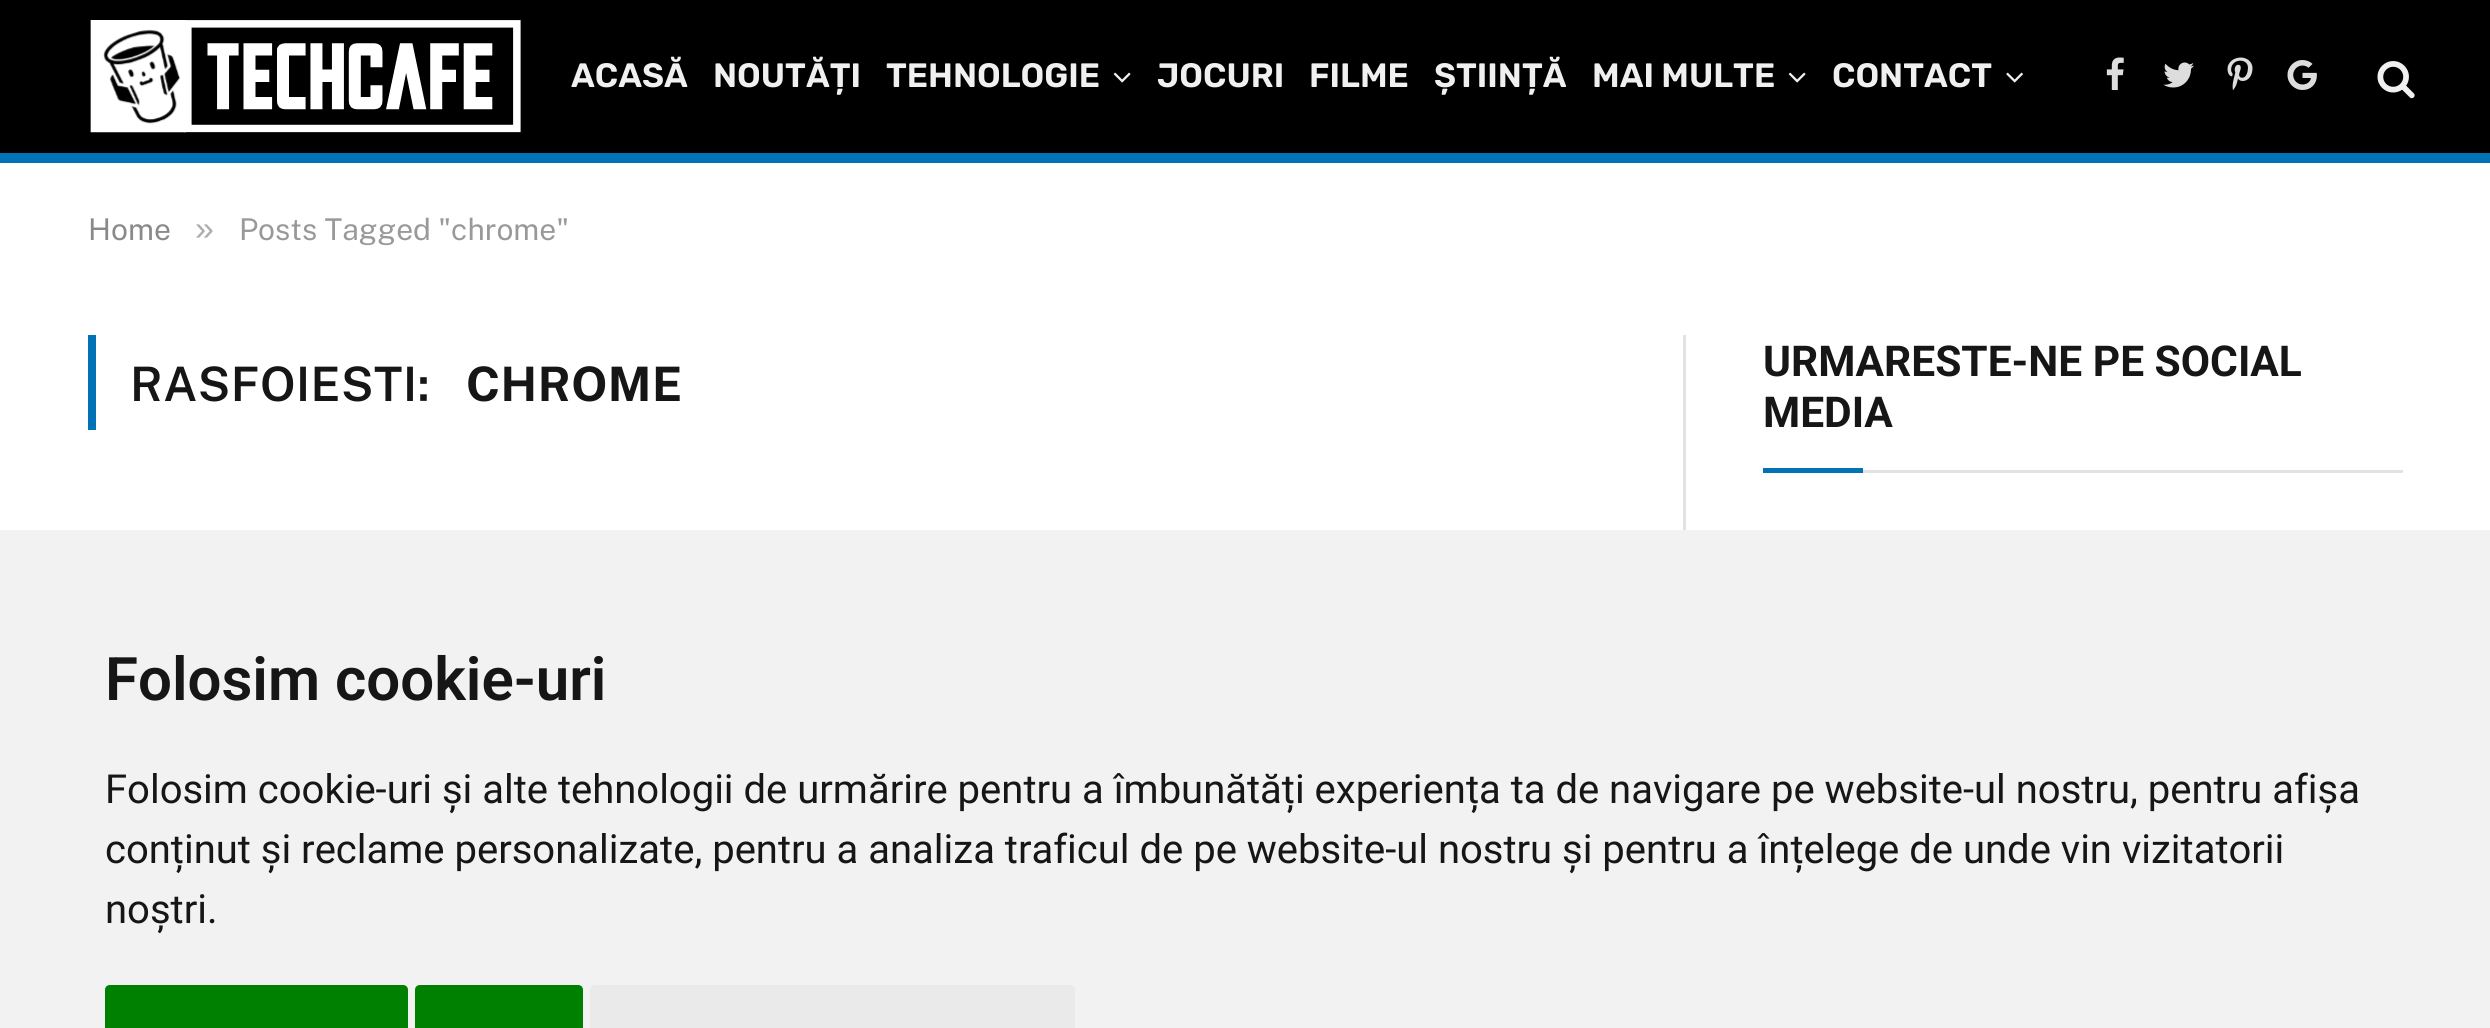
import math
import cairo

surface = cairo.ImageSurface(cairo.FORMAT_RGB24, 2490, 1028)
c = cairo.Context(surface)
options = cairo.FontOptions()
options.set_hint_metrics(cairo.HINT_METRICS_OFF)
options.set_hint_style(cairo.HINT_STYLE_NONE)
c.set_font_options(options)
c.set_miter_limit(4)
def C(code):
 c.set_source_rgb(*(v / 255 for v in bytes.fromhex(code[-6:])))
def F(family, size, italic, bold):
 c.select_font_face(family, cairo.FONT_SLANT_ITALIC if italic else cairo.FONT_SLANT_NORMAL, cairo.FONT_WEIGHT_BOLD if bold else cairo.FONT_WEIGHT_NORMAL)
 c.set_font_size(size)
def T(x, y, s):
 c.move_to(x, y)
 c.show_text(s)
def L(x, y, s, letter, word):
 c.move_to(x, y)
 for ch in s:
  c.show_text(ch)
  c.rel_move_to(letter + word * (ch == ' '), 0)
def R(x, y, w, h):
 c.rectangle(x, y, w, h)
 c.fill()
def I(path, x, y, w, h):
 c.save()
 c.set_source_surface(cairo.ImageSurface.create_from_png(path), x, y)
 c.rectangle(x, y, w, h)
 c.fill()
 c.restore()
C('ffffff')
c.paint()
C('000000')
R(0,0,2490,153)
C('0072b5')
R(0,153,2490,10)
I('1.png',90,20,431,113)
F('Rubik SemiBold',33.75,0,0)
C('f0f0f0')
T(571,87,'ACASĂ')
T(713,87,'NOUTĂȚI')
T(886,87,'TEHNOLOGIE')
I('2.png',1113,72,18,11)
T(1157,87,'JOCURI')
T(1309,87,'FILME')
T(1434,87,'ȘTIINȚĂ')
T(1592,87,'MAI MULTE')
I('2.png',1788,72,18,11)
T(1832,87,'CONTACT')
I('3.png',2006,72,17,11)
I('4.png',2106,57,18,33)
I('5.png',2163,62,31,26)
I('6.png',2227,57,26,33)
I('7.png',2287,60,30,30)
I('8.png',2377,61,38,38)
F('Public Sans',30,0,0)
C('8a8a8a')
T(88,240,'Home')
F('Liberation Sans',34,0,0)
C('adadad')
T(195,240,'»')
F('Public Sans',30,0,0)
C('999999')
T(239,240,'Posts Tagged "chrome"')
C('0072b5')
R(88,335,8,95)
F('Public Sans SemiBold',47.5,0,0)
C('161616')
L(130,401,'RASFOIESTI:',.5,0)
F('Public Sans',47.5,0,1)
L(466,401,'CHROME',.5,0)
C('e2e2e2')
R(1683,335,3,195)
R(1863,470,540,3)
F('Roboto',42.5,0,1)
C('161616')
T(1763,376,'URMARESTE-NE PE SOCIAL')
T(1763,427,'MEDIA')
C('0072b5')
R(1763,468,100,5)
C('f2f2f2')
R(0,530,2490,498)
F('Roboto SemiBold',60,0,0)
C('161616')
T(105,700,'Folosim cookie-uri')
F('Roboto',40,0,0)
T(105,803,'Folosim cookie-uri și alte tehnologii de urmărire pentru a îmbunătăți experiența ta de navigare pe website-ul nostru, pentru afișa')
T(105,863,'conținut și reclame personalizate, pentru a analiza traficul de pe website-ul nostru și pentru a înțelege de unde vin vizitatorii')
T(105,923,'noștri.')
C('008000')
c.new_path()
c.move_to(110,985)
c.line_to(403,985)
c.curve_to(406,985,408,987,408,990)
c.line_to(408,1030)
c.line_to(105,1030)
c.line_to(105,990)
c.curve_to(105,987,107,985,110,985)
c.close_path()
c.fill()
c.new_path()
c.move_to(420,985)
c.line_to(578,985)
c.curve_to(581,985,583,987,583,990)
c.line_to(583,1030)
c.line_to(415,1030)
c.line_to(415,990)
c.curve_to(415,987,417,985,420,985)
c.close_path()
c.fill()
C('eaeaea')
c.new_path()
c.move_to(595,985)
c.line_to(1070,985)
c.curve_to(1073,985,1075,987,1075,990)
c.line_to(1075,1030)
c.line_to(590,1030)
c.line_to(590,990)
c.curve_to(590,987,592,985,595,985)
c.close_path()
c.fill()
surface.write_to_png('o.png')
